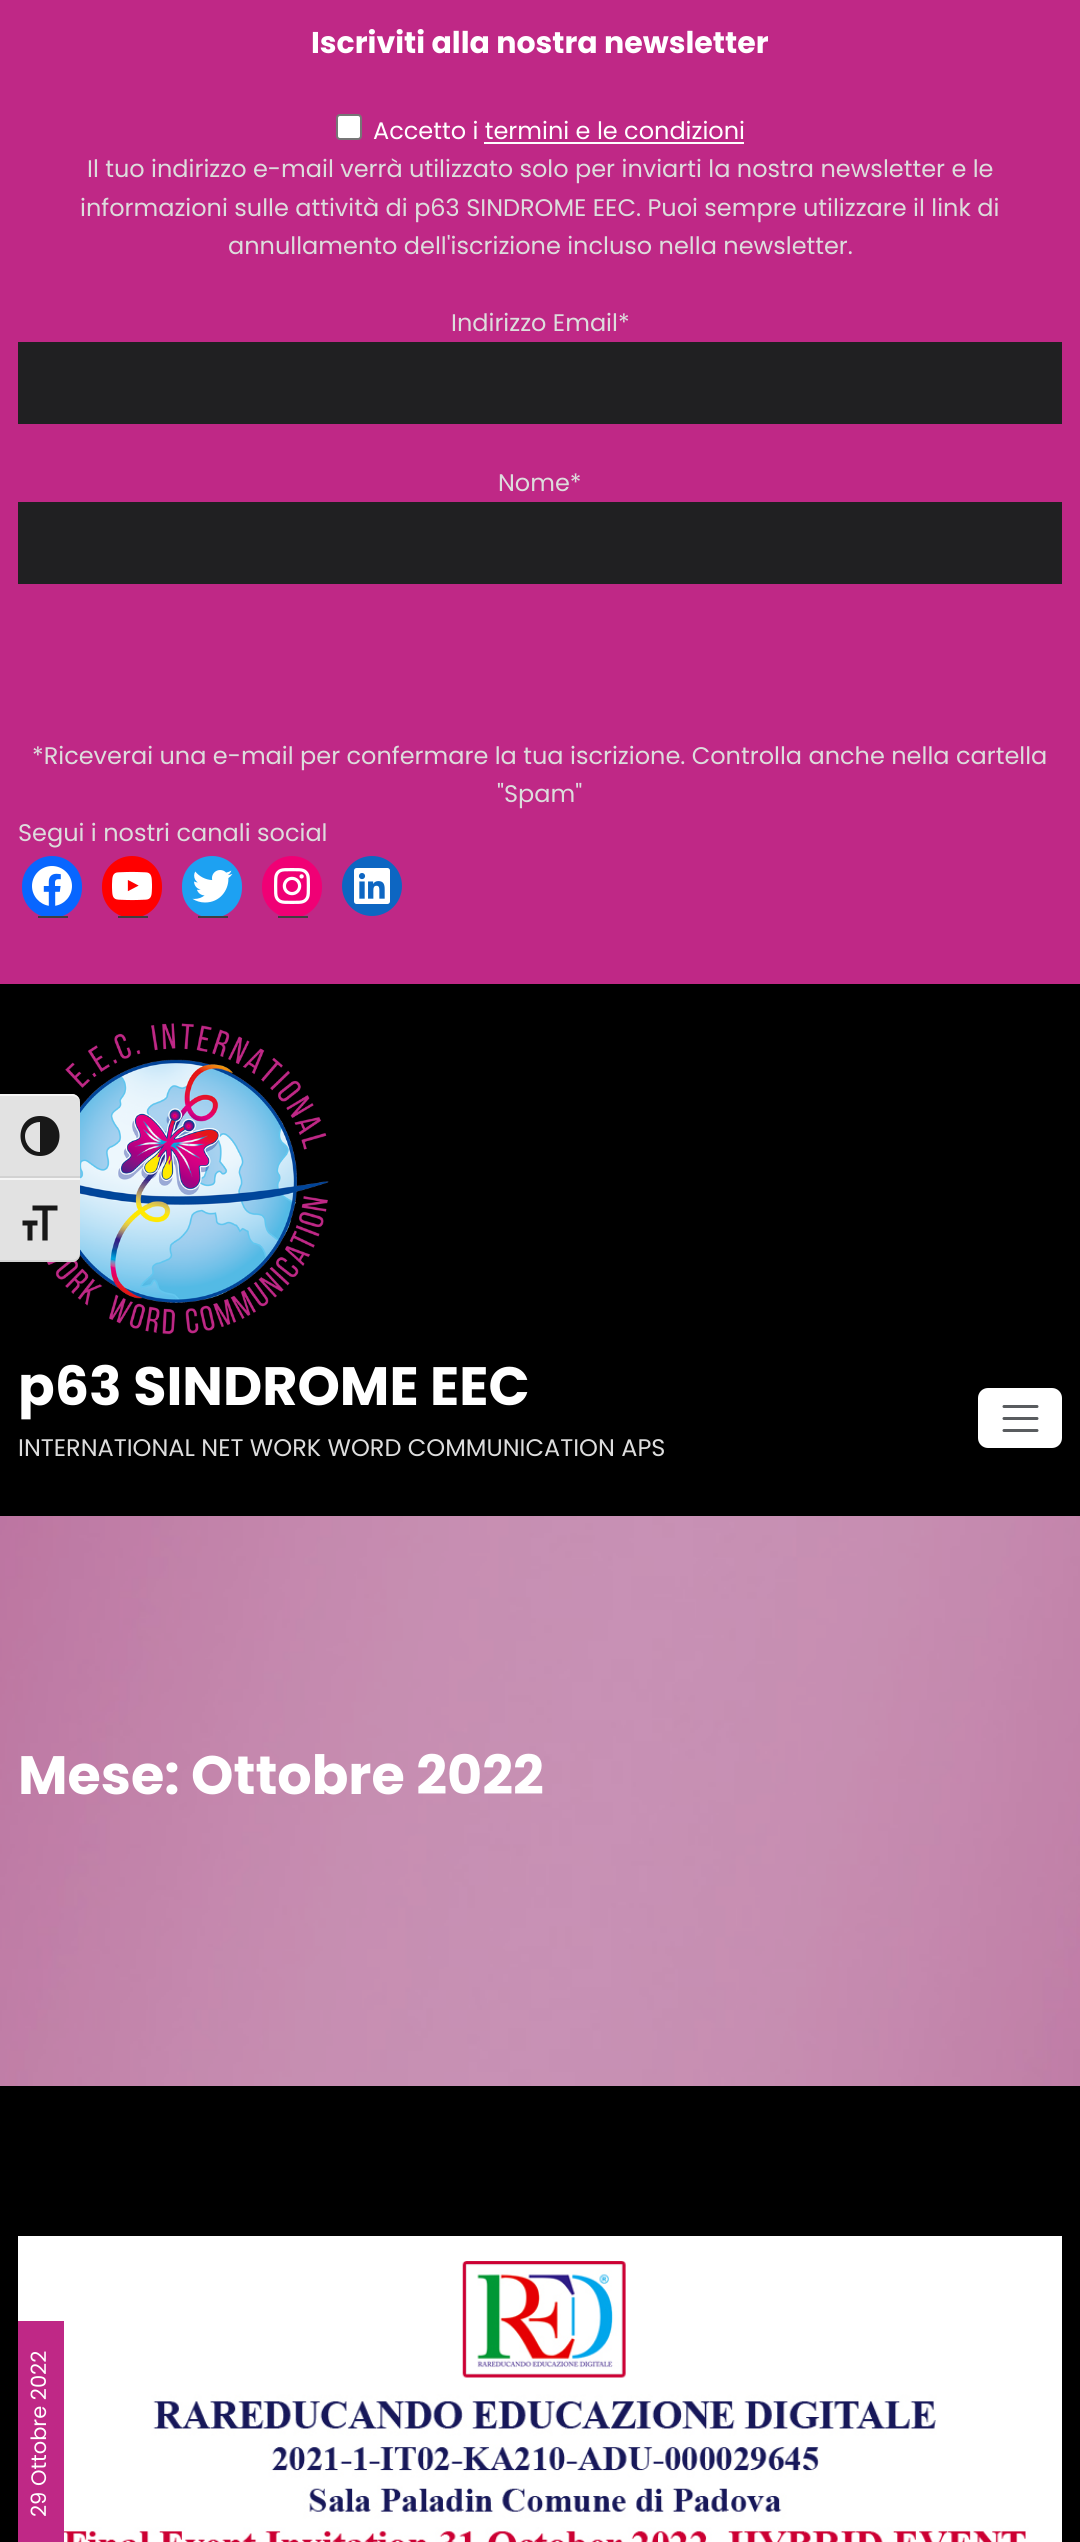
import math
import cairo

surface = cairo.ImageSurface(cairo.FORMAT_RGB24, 1080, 2542)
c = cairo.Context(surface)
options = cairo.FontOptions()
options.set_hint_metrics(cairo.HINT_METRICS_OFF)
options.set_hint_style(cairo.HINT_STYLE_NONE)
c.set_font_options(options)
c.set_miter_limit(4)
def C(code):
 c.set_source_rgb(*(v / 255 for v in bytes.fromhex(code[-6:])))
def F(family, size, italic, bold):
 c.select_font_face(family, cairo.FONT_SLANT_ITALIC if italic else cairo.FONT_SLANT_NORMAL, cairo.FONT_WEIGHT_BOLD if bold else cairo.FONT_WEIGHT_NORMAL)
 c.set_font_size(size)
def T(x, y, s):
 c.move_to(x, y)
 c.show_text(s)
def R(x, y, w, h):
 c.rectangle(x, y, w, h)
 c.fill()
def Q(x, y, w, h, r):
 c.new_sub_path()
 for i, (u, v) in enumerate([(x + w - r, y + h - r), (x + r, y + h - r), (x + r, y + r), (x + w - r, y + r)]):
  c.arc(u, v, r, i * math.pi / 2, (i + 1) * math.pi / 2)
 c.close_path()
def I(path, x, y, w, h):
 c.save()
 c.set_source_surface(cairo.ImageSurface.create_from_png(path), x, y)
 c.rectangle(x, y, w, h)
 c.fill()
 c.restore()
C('000000')
c.paint()
C('bf2886')
R(0,0,1080,984)
F('Poppins',30,0,1)
C('ffffff')
T(311,53,'Iscriviti alla nostra newsletter')
Q(337,115,24,24,3)
c.fill_preserve()
C('767676')
c.stroke()
F('Poppins',24,0,0)
C('ffffff')
T(373,139,'Accetto i termini e le condizioni')
R(484,142,260,2)
C('dddddd')
T(87,177,'Il tuo indirizzo e-mail verrà utilizzato solo per inviarti la nostra newsletter e le')
T(80,216,'informazioni sulle attività di p63 SINDROME EEC. Puoi sempre utilizzare il link di')
T(228,254,'annullamento dell\'iscrizione incluso nella newsletter.')
T(451,331,'Indirizzo Email*')
C('202022')
R(18,342,1044,82)
C('dddddd')
T(498,491,'Nome*')
C('202022')
R(18,502,1044,82)
C('dddddd')
T(32,764,'*Riceverai una e-mail per confermare la tua iscrizione. Controlla anche nella cartella')
T(497,802,'"Spam"')
T(18,841,'Segui i nostri canali social')
C('0866ff')
Q(22,856,60,62,30)
c.fill()
C('3f3f3f')
R(38,916,30,2)
I('1.png',32,866,40,40)
C('ff0000')
Q(102,856,60,62,30)
c.fill()
C('3f3f3f')
R(118,916,30,2)
I('2.png',112,871,40,30)
C('1da1f2')
Q(182,856,60,62,30)
c.fill()
C('3f3f3f')
R(198,916,30,2)
I('3.png',192,870,41,33)
C('f00075')
Q(262,856,60,62,30)
c.fill()
C('3f3f3f')
R(278,916,30,2)
I('4.png',274,868,36,36)
C('0d66c2')
c.arc(372,886,30,0,2 * math.pi)
c.fill()
I('5.png',354,868,36,36)
I('6.png',47,1023,282,312)
F('Poppins',54,0,1)
C('ffffff')
T(18,1405,'p63 SINDROME EEC')
F('Poppins',24,0,0)
C('dddddd')
T(18,1456,'INTERNATIONAL NET WORK WORD COMMUNICATION APS')
C('ffffff')
Q(979,1389,82,58,9)
c.fill_preserve()
c.stroke()
c.new_path()
c.move_to(1004,1406.5)
c.line_to(1037,1406.5)
c.move_to(1004,1418.5)
c.line_to(1037,1418.5)
c.move_to(1004,1430.5)
c.line_to(1037,1430.5)
C('595c5f')
c.set_line_width(3)
c.set_line_cap(cairo.LINE_CAP_ROUND)
c.stroke()
I('7.png',0,1516,1080,570)
F('Poppins',54,0,1)
C('ffffff')
T(18,1794,'Mese: Ottobre 2022')
I('8.png',18,2236,1044,306)
C('bf2886')
R(18,2321,46,221)
F('Poppins',21,0,0)
C('ffffff')
c.save()
c.translate(46,2517)
c.rotate(-90 * math.pi / 180)
T(0,0,'29 Ottobre 2022')
c.restore()
C('e2e2e2')
c.new_path()
c.move_to(0,1094)
c.line_to(72,1094)
c.curve_to(76.5,1094,80,1097.5,80,1102)
c.line_to(80,1178)
c.line_to(0,1178)
c.close_path()
c.fill()
C('f5f5f5')
c.new_path()
c.move_to(0,1094)
c.line_to(0,1096)
c.line_to(72,1096)
c.curve_to(76,1096,80,1099,80,1102)
c.curve_to(80,1098,76,1094,72,1094)
c.close_path()
c.fill()
C('d2d2d2')
R(0,1176,80,2)
C('181818')
c.new_path()
c.move_to(40,1116)
c.curve_to(14,1116,14,1156,40,1156)
c.curve_to(66,1156,66,1116,40,1116)
c.close_path()
c.move_to(25,1136)
c.curve_to(25,1128,32,1122,40,1122)
c.line_to(40,1152)
c.curve_to(32,1152,25,1145,25,1136)
c.close_path()
c.fill()
C('e2e2e2')
c.new_path()
c.move_to(0,1178)
c.line_to(80,1178)
c.line_to(80,1254)
c.curve_to(80,1258.5,76.5,1262,72,1262)
c.line_to(0,1262)
c.close_path()
c.fill()
C('f5f5f5')
R(0,1178,80,2)
C('d2d2d2')
c.new_path()
c.move_to(0,1260)
c.line_to(0,1262)
c.line_to(72,1262)
c.curve_to(76,1262,80,1258,80,1254)
c.curve_to(80,1257,76,1260,72,1260)
c.close_path()
c.fill()
I('9.png',22,1205,36,36)
surface.write_to_png('o.png')
